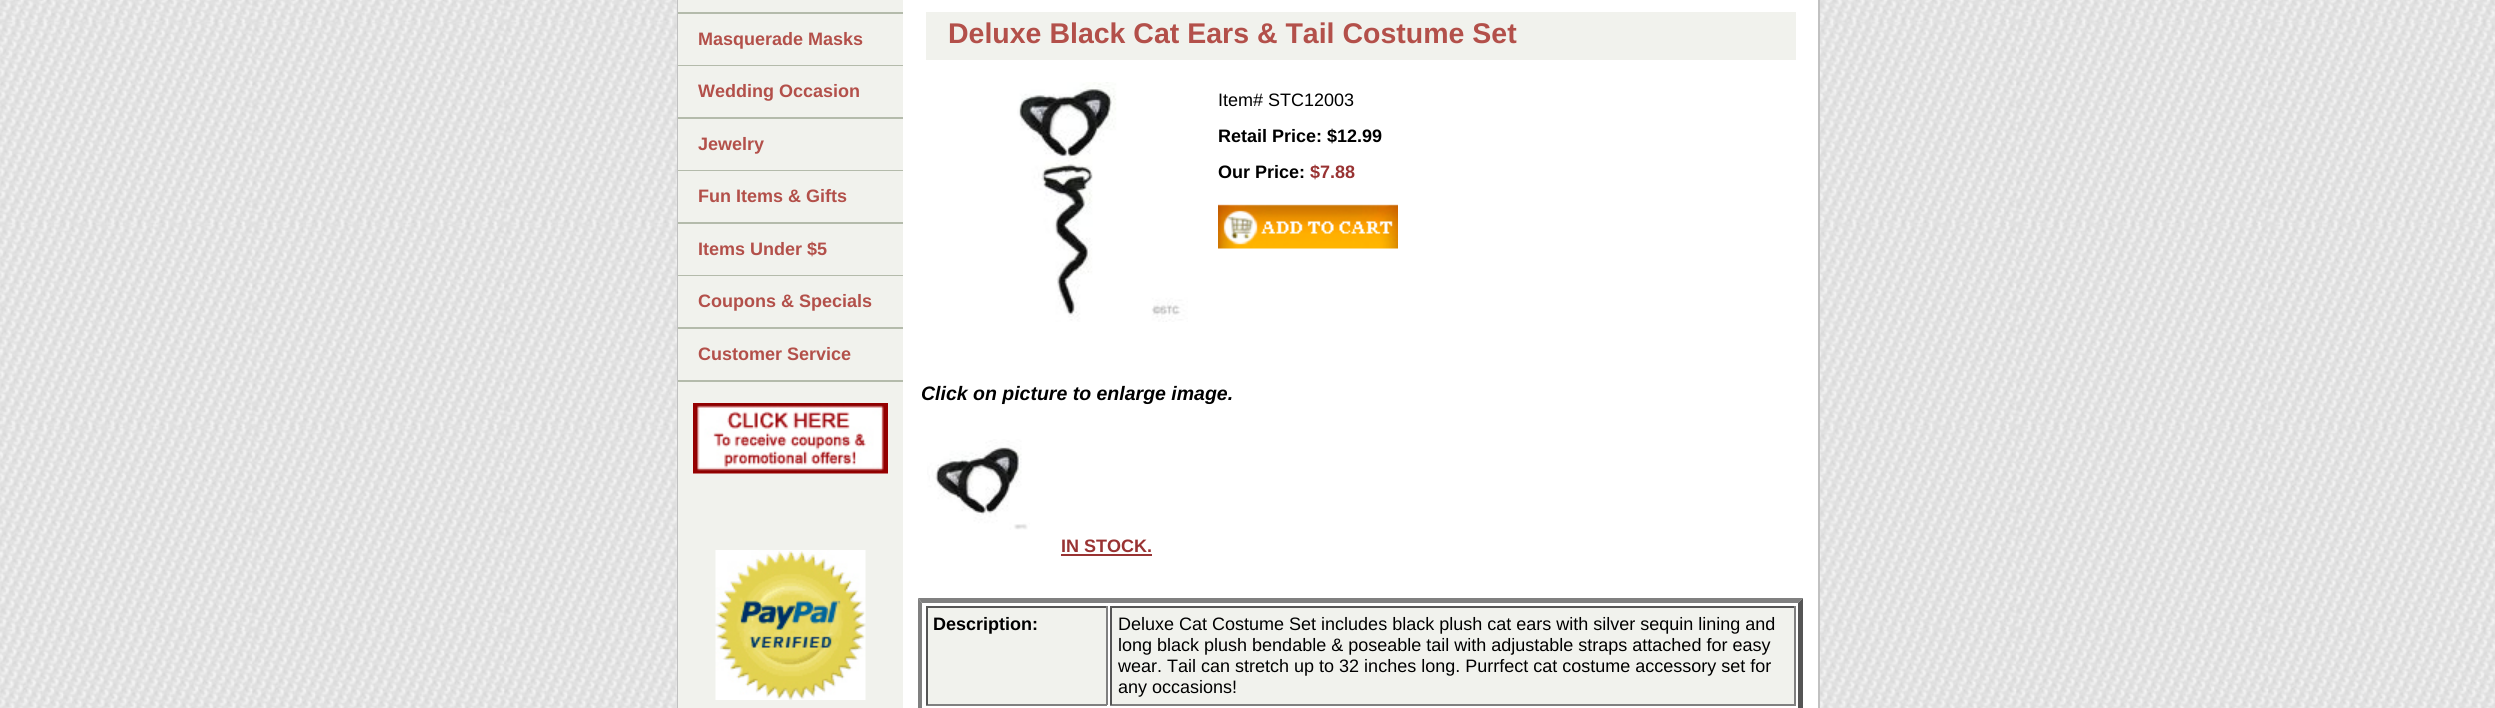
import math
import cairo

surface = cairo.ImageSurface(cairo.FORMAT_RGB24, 2495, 708)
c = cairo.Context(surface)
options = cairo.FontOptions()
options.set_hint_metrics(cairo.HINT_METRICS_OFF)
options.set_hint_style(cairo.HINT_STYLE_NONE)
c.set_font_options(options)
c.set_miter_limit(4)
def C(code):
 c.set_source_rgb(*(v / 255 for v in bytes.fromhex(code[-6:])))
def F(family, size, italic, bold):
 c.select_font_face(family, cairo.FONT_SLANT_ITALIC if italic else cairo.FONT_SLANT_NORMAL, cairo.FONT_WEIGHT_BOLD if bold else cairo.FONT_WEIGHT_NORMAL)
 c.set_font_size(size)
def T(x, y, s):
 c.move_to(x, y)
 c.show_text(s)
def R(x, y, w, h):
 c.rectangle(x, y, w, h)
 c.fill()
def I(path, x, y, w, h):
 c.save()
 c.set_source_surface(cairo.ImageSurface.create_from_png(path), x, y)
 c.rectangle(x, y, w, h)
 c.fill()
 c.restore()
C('ffffff')
c.paint()
I('1.png',0,0,2495,708)
c.rectangle(678,-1,1141,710)
C('c1c1c1')
c.stroke()
C('ffffff')
R(903,0,915,708)
C('f1f2ed')
R(678,0,225,708)
C('b4bbab')
R(678,12,225,2)
R(678,65,225,1)
F('Liberation Sans',18,0,1)
C('b3504a')
T(698,45,'Masquerade Masks')
C('b4bbab')
R(678,117,225,2)
C('b3504a')
T(698,97,'Wedding Occasion')
C('b4bbab')
R(678,170,225,1)
C('b3504a')
T(698,150,'Jewelry')
C('b4bbab')
R(678,222,225,2)
C('b3504a')
T(698,202,'Fun Items & Gifts')
C('b4bbab')
R(678,275,225,1)
C('b3504a')
T(698,255,'Items Under $5')
C('b4bbab')
R(678,327,225,2)
C('b3504a')
T(698,307,'Coupons & Specials')
C('b4bbab')
R(678,380,225,2)
C('b3504a')
T(698,360,'Customer Service')
I('2.png',693,403,195,71)
I('3.png',715,550,151,150)
C('f1f2ed')
R(926,12,870,48)
F('Liberation Sans',28.5,0,1)
C('b3504a')
T(948,43,'Deluxe Black Cat Ears & Tail Costume Set')
I('4.png',1017,82,171,240)
F('Liberation Sans',18,0,0)
C('000000')
T(1218,106,'Item# STC12003')
F('Liberation Sans',18,0,1)
T(1218,142,'Retail Price: $12.99')
T(1218,178,'Our Price:')
C('993333')
T(1310,178,'$7.88')
I('5.png',1218,204,180,45)
F('Liberation Sans',19.5,1,1)
C('000000')
T(921,400,'Click on picture to enlarge image.')
I('6.png',927,439,103,91)
F('Liberation Sans',18,0,1)
C('993333')
T(1061,552,'IN STOCK.')
R(1061,554,91,2)
C('808080')
c.new_path()
c.move_to(918,598)
c.line_to(1803,598)
c.line_to(1798,603)
c.line_to(922,603)
c.close_path()
c.fill()
C('555555')
c.new_path()
c.move_to(1803,598)
c.line_to(1803,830)
c.line_to(1798,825)
c.line_to(1798,603)
c.close_path()
c.fill()
C('808080')
c.new_path()
c.move_to(918,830)
c.line_to(918,598)
c.line_to(922,603)
c.line_to(922,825)
c.close_path()
c.fill()
C('f1f2ed')
R(928,608,178,96)
C('555555')
R(926,606,181,2)
C('808080')
R(1106,606,2,99)
R(926,704,181,2)
C('555555')
R(926,606,2,99)
C('000000')
T(933,630,'Description:')
C('f1f2ed')
R(1112,608,682,96)
C('555555')
R(1110,606,686,2)
C('808080')
R(1794,606,2,99)
R(1110,704,686,2)
C('555555')
R(1110,606,2,99)
F('Liberation Sans',18,0,0)
C('000000')
T(1118,630,'Deluxe Cat Costume Set includes black plush cat ears with silver sequin lining and')
T(1118,651,'long black plush bendable & poseable tail with adjustable straps attached for easy')
T(1118,672,'wear. Tail can stretch up to 32 inches long. Purrfect cat costume accessory set for')
T(1118,693,'any occasions!')
surface.write_to_png('o.png')
